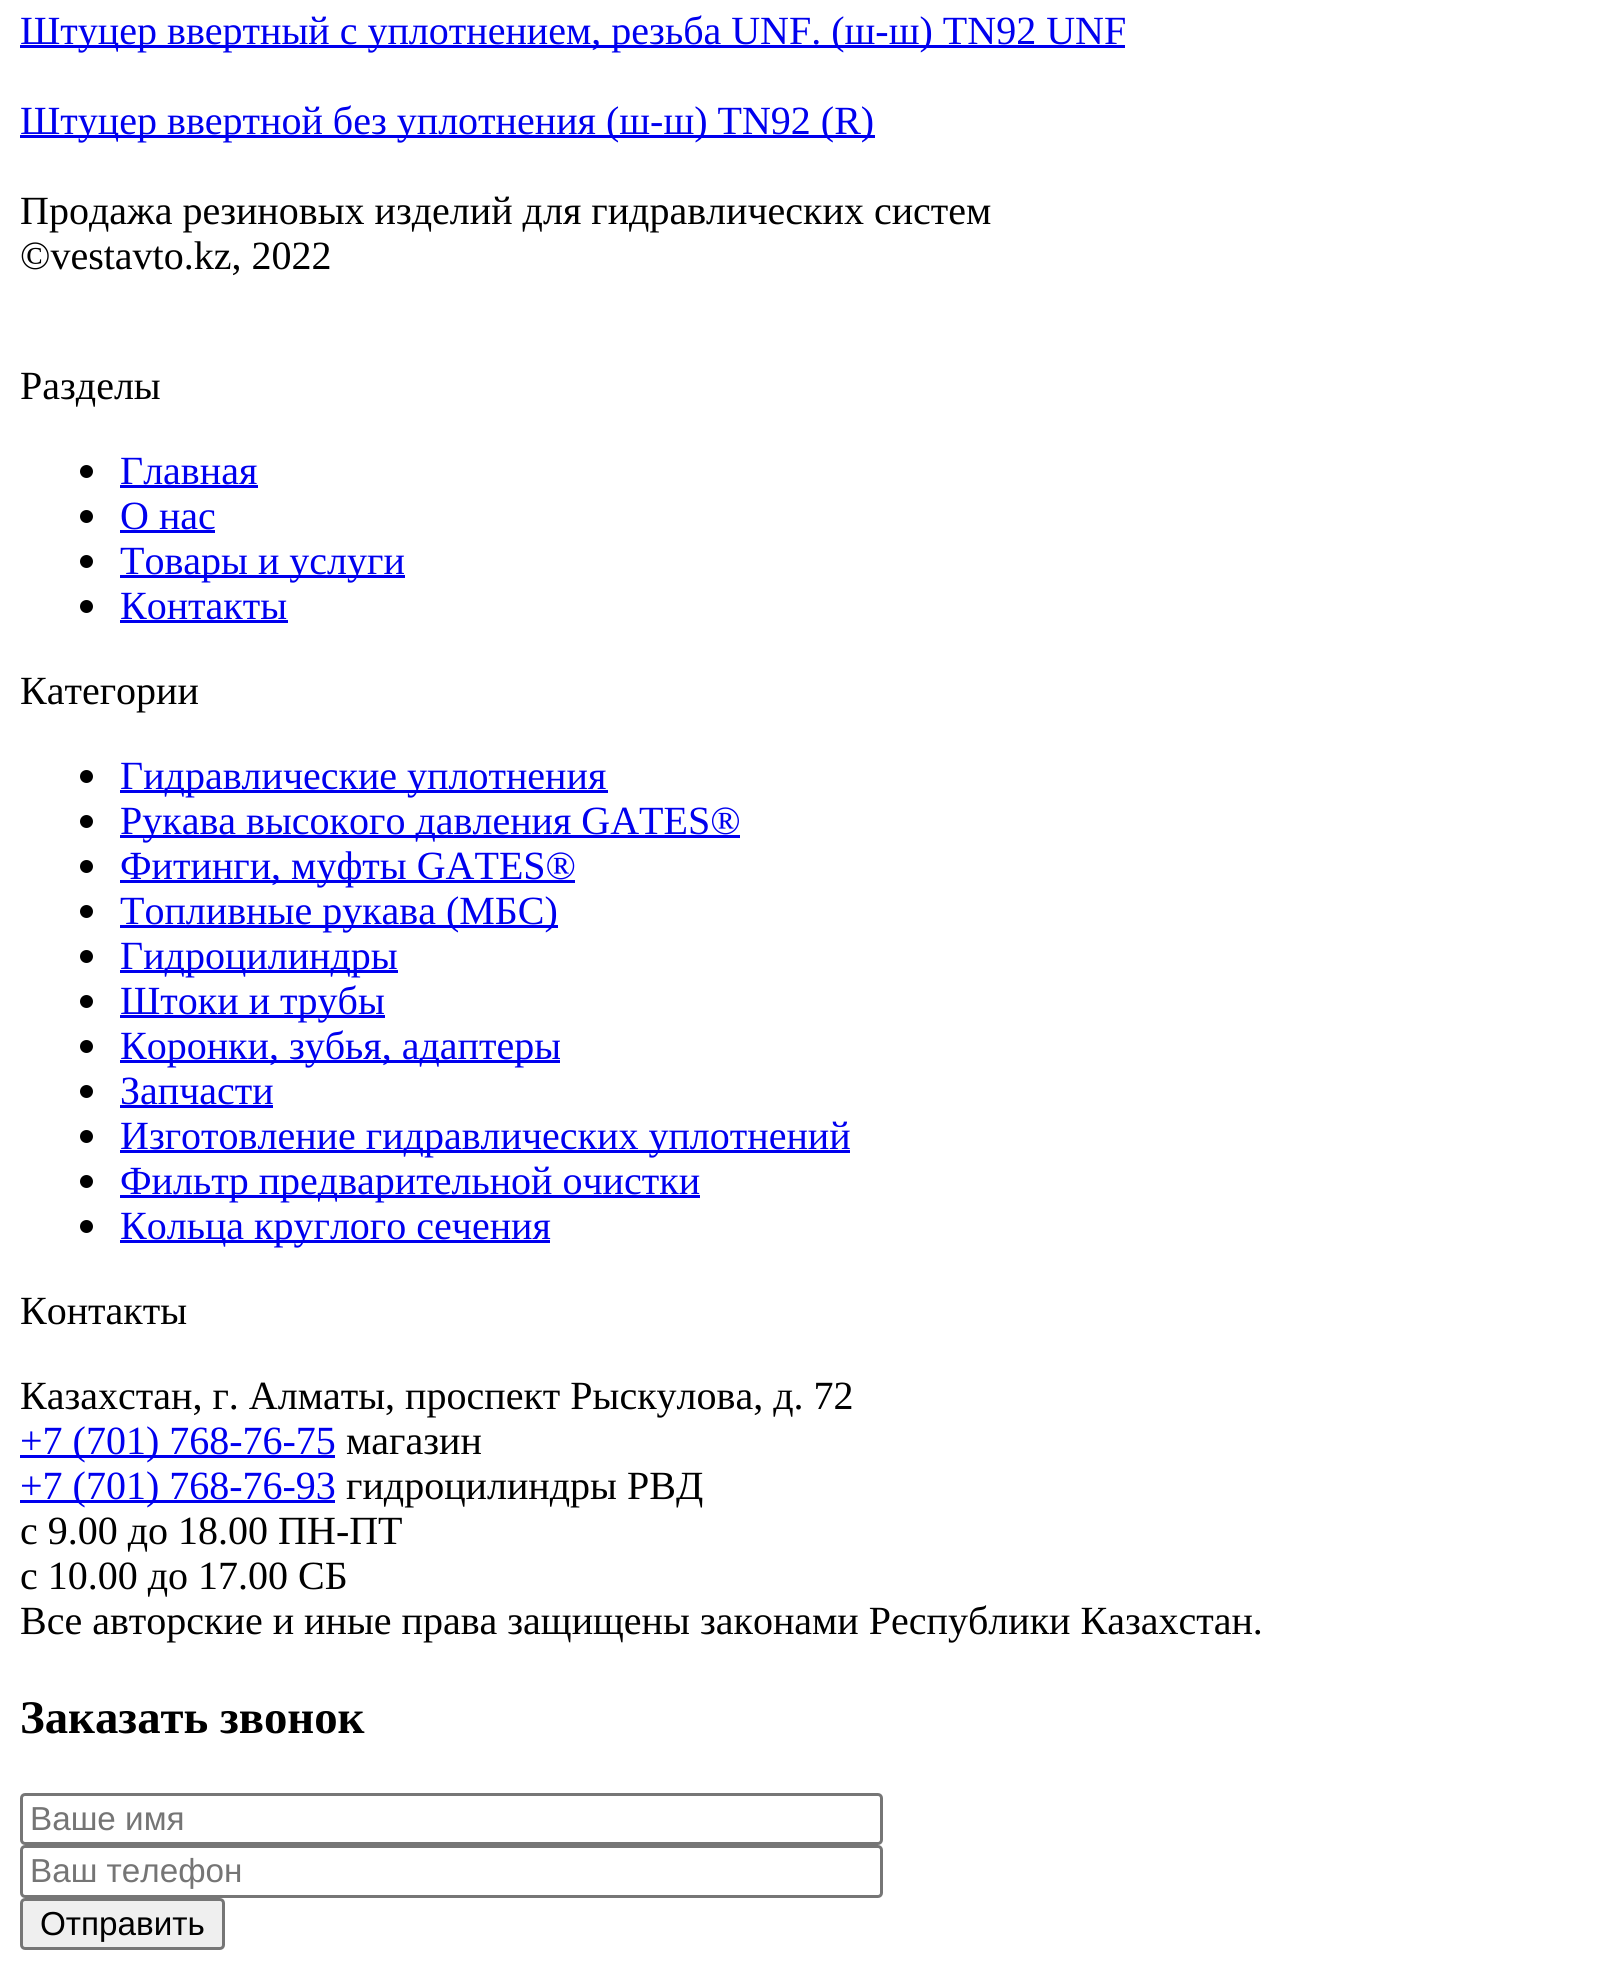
import math
import cairo

surface = cairo.ImageSurface(cairo.FORMAT_RGB24, 1621, 1970)
c = cairo.Context(surface)
options = cairo.FontOptions()
options.set_hint_metrics(cairo.HINT_METRICS_OFF)
options.set_hint_style(cairo.HINT_STYLE_NONE)
c.set_font_options(options)
c.set_miter_limit(4)
def C(code):
 c.set_source_rgb(*(v / 255 for v in bytes.fromhex(code[-6:])))
def F(family, size, italic, bold):
 c.select_font_face(family, cairo.FONT_SLANT_ITALIC if italic else cairo.FONT_SLANT_NORMAL, cairo.FONT_WEIGHT_BOLD if bold else cairo.FONT_WEIGHT_NORMAL)
 c.set_font_size(size)
def T(x, y, s):
 c.move_to(x, y)
 c.show_text(s)
def R(x, y, w, h):
 c.rectangle(x, y, w, h)
 c.fill()
def Q(x, y, w, h, r):
 c.new_sub_path()
 for i, (u, v) in enumerate([(x + w - r, y + h - r), (x + r, y + h - r), (x + r, y + r), (x + w - r, y + r)]):
  c.arc(u, v, r, i * math.pi / 2, (i + 1) * math.pi / 2)
 c.close_path()
C('ffffff')
c.paint()
C('0000ee')
R(20,45,1105,3)
F('Liberation Serif',40,0,0)
T(20,44,'Штуцер ввертный с уплотнением, резьба UNF. (ш-ш) TN92 UNF')
R(20,135,855,3)
T(20,134,'Штуцер ввертной без уплотнения (ш-ш) TN92 (R)')
C('000000')
T(20,224,'Продажа резиновых изделий для гидравлических систем')
T(20,269,'©vestavto.kz, 2022')
T(20,399,'Разделы')
c.new_path()
c.arc(86.5,471.5,6.5,0,2 * math.pi)
c.fill()
C('0000ee')
T(120,484,'Главная')
R(120,485,138,3)
C('000000')
c.new_path()
c.arc(86.5,516.5,6.5,0,2 * math.pi)
c.fill()
C('0000ee')
T(120,529,'О нас')
R(120,530,95,3)
C('000000')
c.new_path()
c.arc(86.5,561.5,6.5,0,2 * math.pi)
c.fill()
C('0000ee')
R(120,575,285,3)
T(120,574,'Товары и услуги')
C('000000')
c.new_path()
c.arc(86.5,606.5,6.5,0,2 * math.pi)
c.fill()
C('0000ee')
T(120,619,'Контакты')
R(120,620,168,3)
C('000000')
T(20,704,'Категории')
c.new_path()
c.arc(86.5,776.5,6.5,0,2 * math.pi)
c.fill()
C('0000ee')
R(120,790,488,3)
T(120,789,'Гидравлические уплотнения')
C('000000')
c.new_path()
c.arc(86.5,821.5,6.5,0,2 * math.pi)
c.fill()
C('0000ee')
R(120,835,620,3)
T(120,834,'Рукава высокого давления GATES®')
C('000000')
c.new_path()
c.arc(86.5,866.5,6.5,0,2 * math.pi)
c.fill()
C('0000ee')
R(120,880,455,3)
T(120,879,'Фитинги, муфты GATES®')
C('000000')
c.new_path()
c.arc(86.5,911.5,6.5,0,2 * math.pi)
c.fill()
C('0000ee')
R(120,925,438,3)
T(120,924,'Топливные рукава (МБС)')
C('000000')
c.new_path()
c.arc(86.5,956.5,6.5,0,2 * math.pi)
c.fill()
C('0000ee')
R(120,970,278,3)
T(120,969,'Гидроцилиндры')
C('000000')
c.new_path()
c.arc(86.5,1001.5,6.5,0,2 * math.pi)
c.fill()
C('0000ee')
R(120,1015,265,3)
T(120,1014,'Штоки и трубы')
C('000000')
c.new_path()
c.arc(86.5,1046.5,6.5,0,2 * math.pi)
c.fill()
C('0000ee')
R(120,1060,440,3)
T(120,1059,'Коронки, зубья, адаптеры')
C('000000')
c.new_path()
c.arc(86.5,1091.5,6.5,0,2 * math.pi)
c.fill()
C('0000ee')
T(120,1104,'Запчасти')
R(120,1105,153,3)
C('000000')
c.new_path()
c.arc(86.5,1136.5,6.5,0,2 * math.pi)
c.fill()
C('0000ee')
R(120,1150,730,3)
T(120,1149,'Изготовление гидравлических уплотнений')
C('000000')
c.new_path()
c.arc(86.5,1181.5,6.5,0,2 * math.pi)
c.fill()
C('0000ee')
R(120,1195,580,3)
T(120,1194,'Фильтр предварительной очистки')
C('000000')
c.new_path()
c.arc(86.5,1226.5,6.5,0,2 * math.pi)
c.fill()
C('0000ee')
R(120,1240,430,3)
T(120,1239,'Кольца круглого сечения')
C('000000')
T(20,1324,'Контакты')
T(20,1409,'Казахстан, г. Алматы, проспект Рыскулова, д. 72')
C('0000ee')
R(20,1455,315,3)
T(20,1454,'+7 (701) 768-76-75')
C('000000')
T(346,1454,'магазин')
C('0000ee')
R(20,1500,315,3)
T(20,1499,'+7 (701) 768-76-93')
C('000000')
T(346,1499,'гидроцилиндры РВД')
T(20,1544,'с 9.00 до 18.00 ПН-ПТ')
T(20,1589,'с 10.00 до 17.00 СБ')
T(20,1634,'Все авторские и иные права защищены законами Республики Казахстан.')
F('Liberation Serif',46.75,0,1)
T(20,1733,'Заказать звонок')
Q(21.5,1794.5,860,49,3.5)
C('767676')
c.set_line_width(3)
c.stroke()
F('Liberation Sans',33.25,0,0)
C('757575')
T(30,1830,'Ваше имя')
Q(21.5,1846.5,860,50,3.5)
C('767676')
c.stroke()
C('757575')
T(30,1882,'Ваш телефон')
C('efefef')
Q(21.5,1899.5,202,49,3.5)
c.fill_preserve()
C('767676')
c.stroke()
C('000000')
T(40,1935,'Отправить')
surface.write_to_png('o.png')
